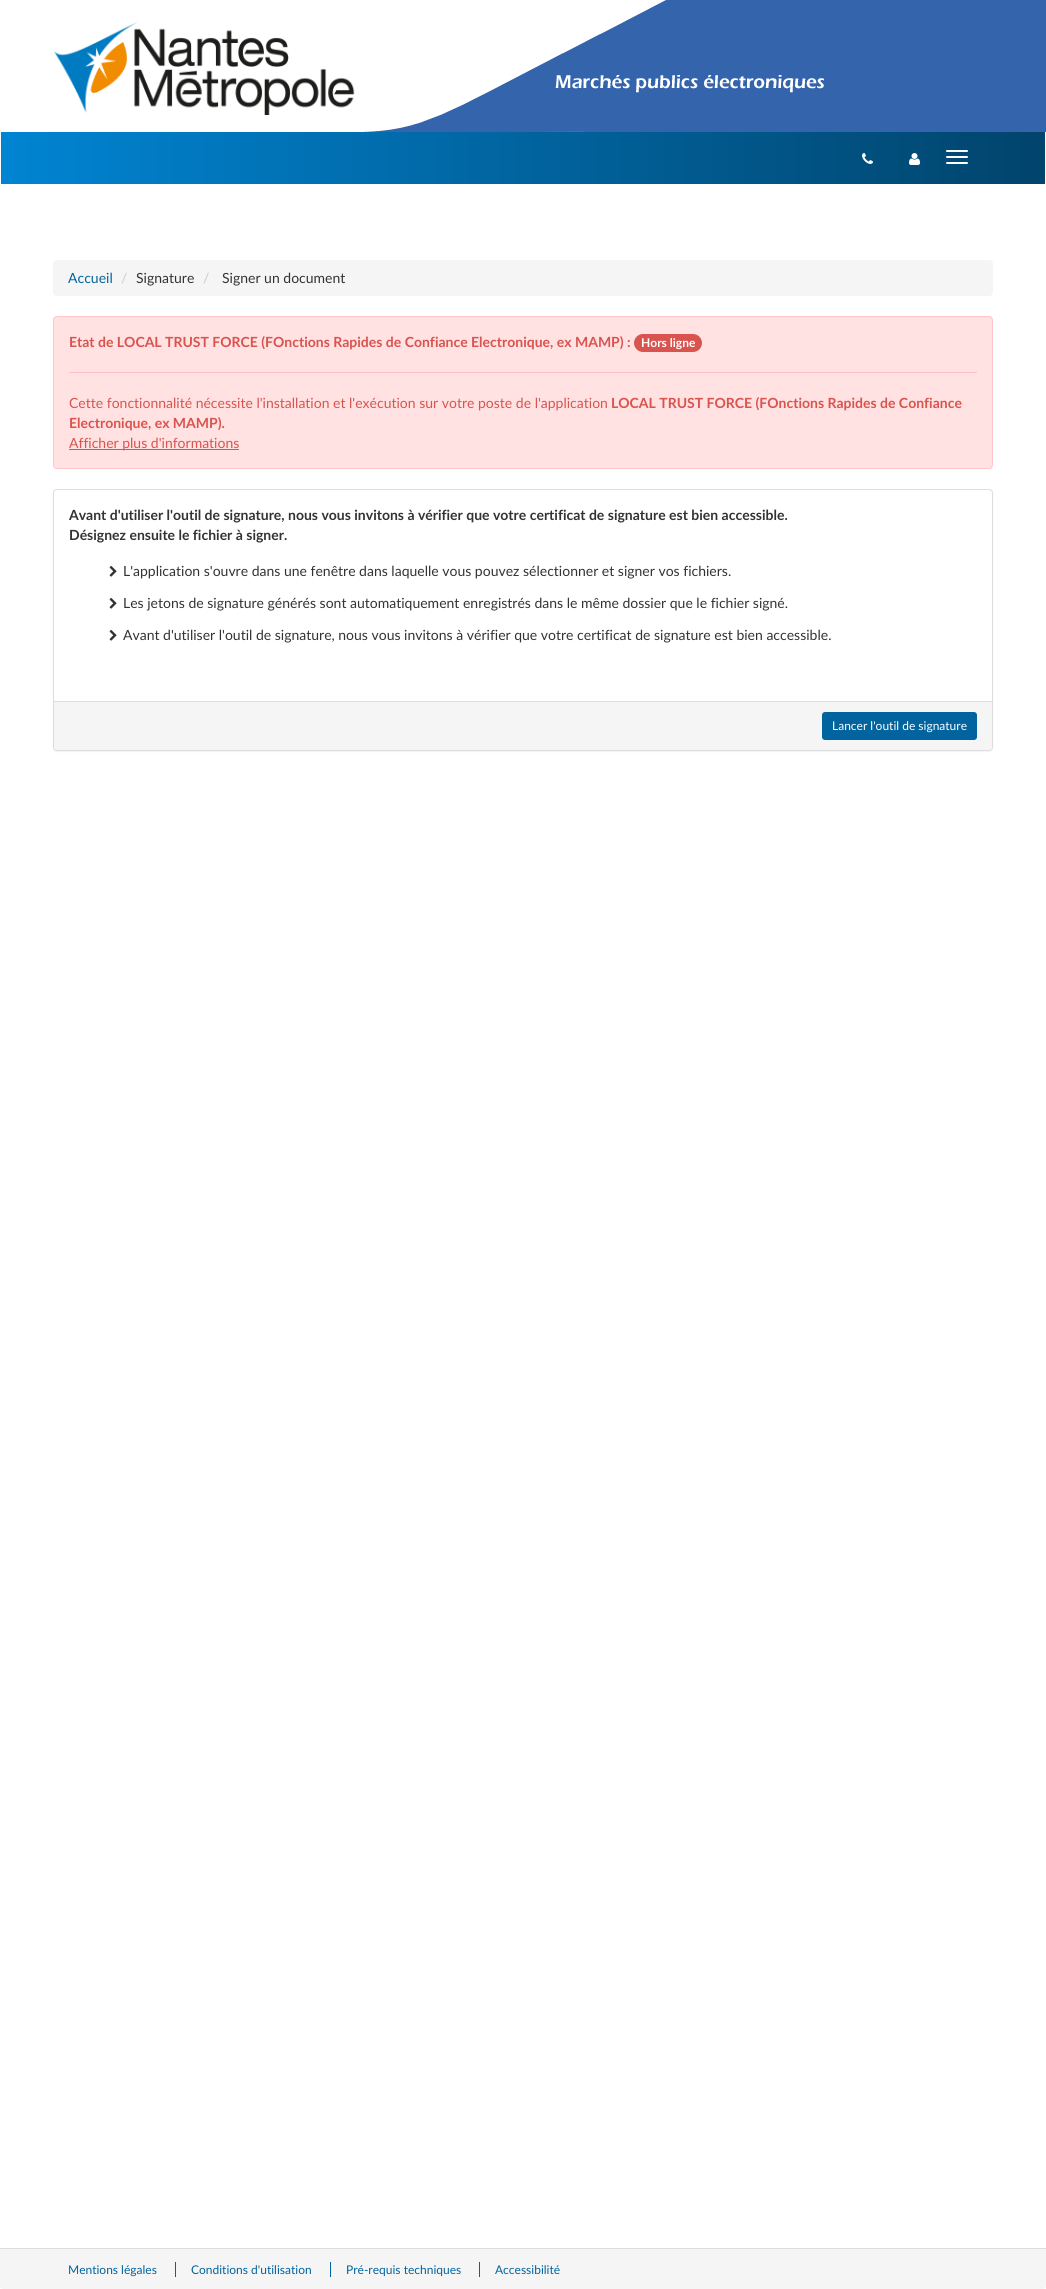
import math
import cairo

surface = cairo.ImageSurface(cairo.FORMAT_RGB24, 1046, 2289)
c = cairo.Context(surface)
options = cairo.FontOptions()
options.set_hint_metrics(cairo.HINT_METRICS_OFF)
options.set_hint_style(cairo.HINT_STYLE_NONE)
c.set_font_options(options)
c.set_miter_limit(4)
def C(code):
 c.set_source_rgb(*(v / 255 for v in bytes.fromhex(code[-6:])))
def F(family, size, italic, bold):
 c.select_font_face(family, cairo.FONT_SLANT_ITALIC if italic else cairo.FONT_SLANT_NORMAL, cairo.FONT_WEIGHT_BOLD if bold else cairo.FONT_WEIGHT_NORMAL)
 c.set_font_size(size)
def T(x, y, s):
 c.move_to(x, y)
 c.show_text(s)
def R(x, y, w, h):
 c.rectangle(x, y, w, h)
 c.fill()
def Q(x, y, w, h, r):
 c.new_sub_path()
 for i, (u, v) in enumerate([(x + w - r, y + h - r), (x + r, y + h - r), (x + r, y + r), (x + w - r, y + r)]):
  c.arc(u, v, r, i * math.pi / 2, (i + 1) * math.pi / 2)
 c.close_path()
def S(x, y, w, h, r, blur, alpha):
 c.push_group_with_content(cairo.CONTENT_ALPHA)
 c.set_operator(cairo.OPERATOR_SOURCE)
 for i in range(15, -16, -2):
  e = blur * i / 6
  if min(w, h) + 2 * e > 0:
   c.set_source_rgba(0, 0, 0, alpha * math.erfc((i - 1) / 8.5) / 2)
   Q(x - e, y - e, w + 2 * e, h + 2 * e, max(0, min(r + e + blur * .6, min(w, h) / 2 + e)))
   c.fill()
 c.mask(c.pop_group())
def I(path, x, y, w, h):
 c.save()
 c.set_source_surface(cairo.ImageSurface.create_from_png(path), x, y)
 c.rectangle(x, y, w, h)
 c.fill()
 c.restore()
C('ffffff')
c.paint()
I('1.png',824,0,222,132)
I('2.png',364,0,460,132)
I('3.png',54,22,301,93)
gradient = cairo.LinearGradient(1,158,1045,158)
gradient.add_color_stop_rgba(0,0.004,0.518,0.824,1)
gradient.add_color_stop_rgba(1,0.004,0.267,0.424,1)
c.set_source(gradient)
R(1,132,1044,52)
I('4.png',862,153,11,11)
I('5.png',909,153,11,12)
C('ffffff')
Q(946,150,22,2,1)
c.fill()
Q(946,156,22,2,1)
c.fill()
Q(946,162,22,2,1)
c.fill()
C('f5f5f5')
Q(53,260,940,36,4)
c.fill()
F('Lato',14,0,0)
C('01649f')
T(68,283,'Accueil')
C('cccccc')
T(121,283,'/')
C('333333')
T(136,283,'Signature')
C('cccccc')
T(203,283,'/')
C('333333')
T(222,283,'Signer un document')
C('ffe2e1')
Q(53,316,940,153,4)
c.fill()
Q(53.5,316.5,939,152,3.5)
c.set_source_rgba(1,0.314,0.412,0.2)
c.set_line_width(1)
c.stroke()
F('Lato',14,0,1)
C('d9534f')
T(69,347,'Etat de LOCAL TRUST FORCE (FOnctions Rapides de Confiance Electronique, ex MAMP) :')
Q(634,334,68,18,9)
c.fill()
F('Lato',12,0,1)
C('ffffff')
T(641,347,'Hors ligne')
C('ffc0c5')
R(69,372,908,1)
F('Lato',14,0,0)
C('d9534f')
T(69,408,'Cette fonctionnalité nécessite l\'installation et l\'exécution sur votre poste de l\'application')
F('Lato',14,0,1)
T(611,408,'LOCAL TRUST FORCE (FOnctions Rapides de Confiance')
T(69,428,'Electronique, ex MAMP).')
R(69,449,170,1)
F('Lato',14,0,0)
T(69,448,'Afficher plus d\'informations')
C('000000')
S(53,490,940,262,4,.5,.05)
C('ffffff')
Q(53.5,489.5,939,261,3.5)
c.fill_preserve()
C('dddddd')
c.stroke()
F('Lato',14,0,1)
C('333333')
T(69,520,'Avant d\'utiliser l\'outil de signature, nous vous invitons à vérifier que votre certificat de signature est bien accessible.')
T(69,540,'Désignez ensuite le fichier à signer.')
I('6.png',109,565,8,12)
F('Lato',14,0,0)
T(123,576,'L\'application s\'ouvre dans une fenêtre dans laquelle vous pouvez sélectionner et signer vos fichiers.')
I('6.png',109,597,8,12)
T(123,608,'Les jetons de signature générés sont automatiquement enregistrés dans le même dossier que le fichier signé.')
I('6.png',109,629,8,12)
T(123,640,'Avant d\'utiliser l\'outil de signature, nous vous invitons à vérifier que votre certificat de signature est bien accessible.')
C('f5f5f5')
c.new_path()
c.move_to(54,701)
c.line_to(992,701)
c.line_to(992,747)
c.curve_to(992,748.5,990.5,750,989,750)
c.line_to(57,750)
c.curve_to(55.5,750,54,748.5,54,747)
c.close_path()
c.fill()
C('dddddd')
R(54,701,938,1)
C('01649f')
Q(822,712,155,28,3)
c.fill()
F('Lato',12,0,0)
C('ffffff')
T(832,730,'Lancer l\'outil de signature')
C('f5f5f5')
c.new_path()
c.move_to(0,2248)
c.line_to(1046,2248)
c.line_to(1046,2286)
c.curve_to(1046,2287.5,1044.5,2289,1043,2289)
c.line_to(3,2289)
c.curve_to(1.5,2289,0,2287.5,0,2286)
c.close_path()
c.fill()
C('dddddd')
R(0,2248,1046,1)
C('01649f')
T(68,2274,'Mentions légales')
T(191,2274,'Conditions d\'utilisation')
R(175,2262,1,15)
T(346,2274,'Pré-requis techniques')
R(330,2262,1,15)
T(495,2274,'Accessibilité')
R(479,2262,1,15)
surface.write_to_png('o.png')
